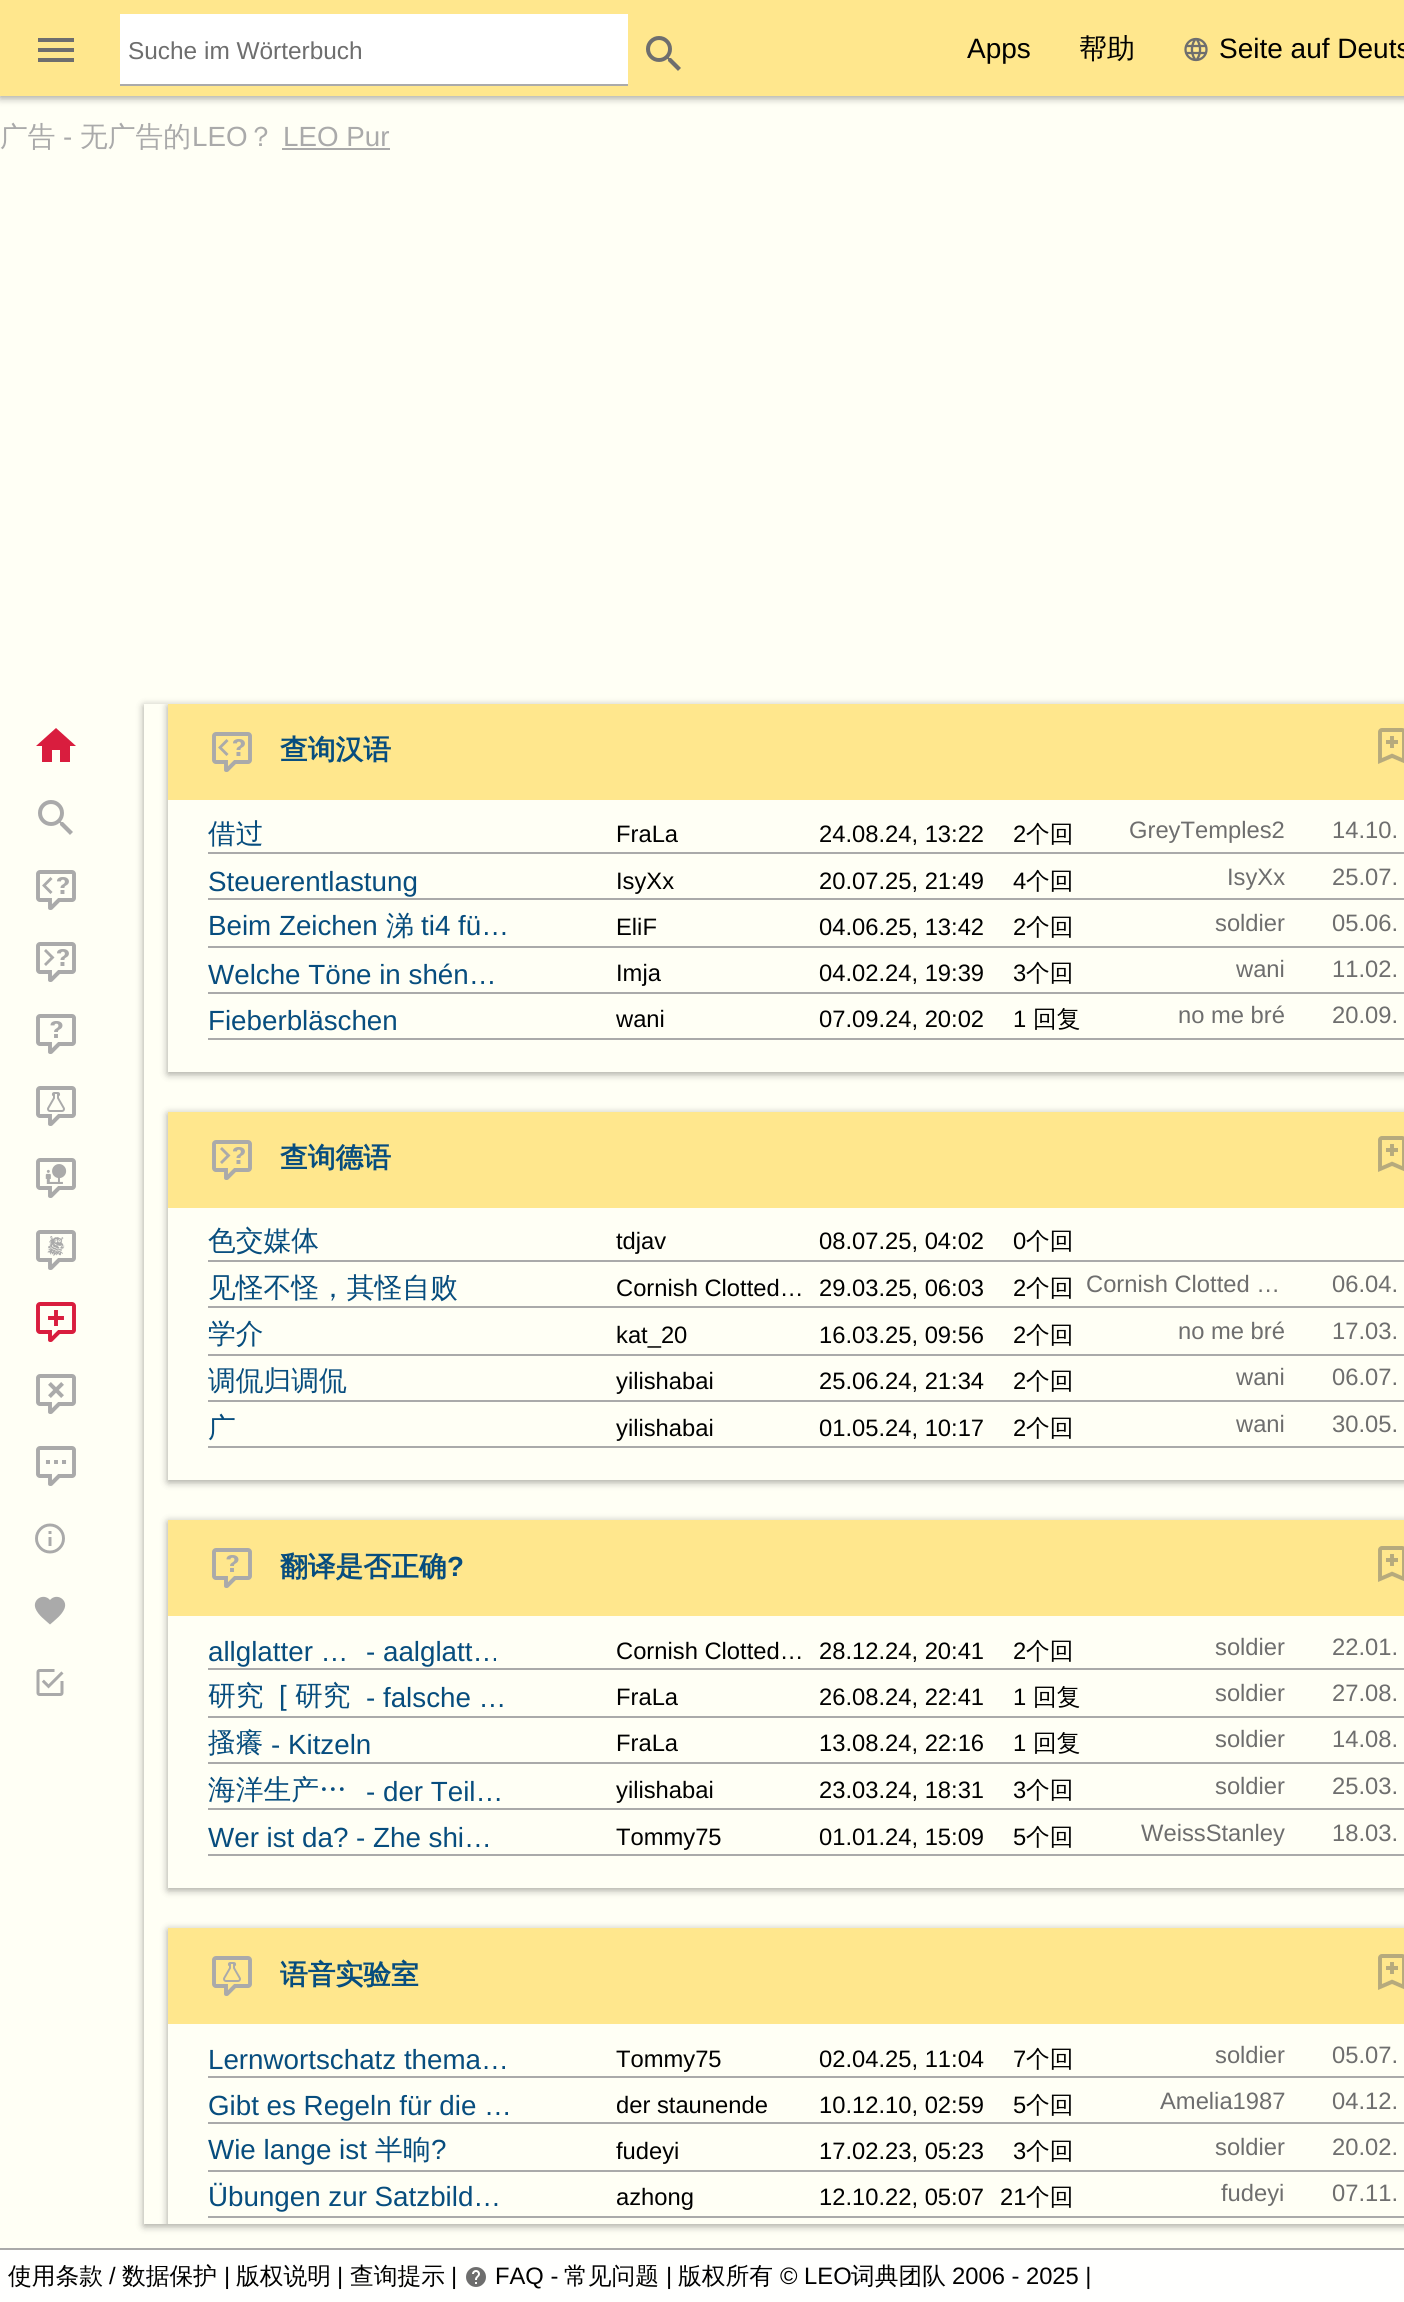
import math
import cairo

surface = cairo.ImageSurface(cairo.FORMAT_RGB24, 1404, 2302)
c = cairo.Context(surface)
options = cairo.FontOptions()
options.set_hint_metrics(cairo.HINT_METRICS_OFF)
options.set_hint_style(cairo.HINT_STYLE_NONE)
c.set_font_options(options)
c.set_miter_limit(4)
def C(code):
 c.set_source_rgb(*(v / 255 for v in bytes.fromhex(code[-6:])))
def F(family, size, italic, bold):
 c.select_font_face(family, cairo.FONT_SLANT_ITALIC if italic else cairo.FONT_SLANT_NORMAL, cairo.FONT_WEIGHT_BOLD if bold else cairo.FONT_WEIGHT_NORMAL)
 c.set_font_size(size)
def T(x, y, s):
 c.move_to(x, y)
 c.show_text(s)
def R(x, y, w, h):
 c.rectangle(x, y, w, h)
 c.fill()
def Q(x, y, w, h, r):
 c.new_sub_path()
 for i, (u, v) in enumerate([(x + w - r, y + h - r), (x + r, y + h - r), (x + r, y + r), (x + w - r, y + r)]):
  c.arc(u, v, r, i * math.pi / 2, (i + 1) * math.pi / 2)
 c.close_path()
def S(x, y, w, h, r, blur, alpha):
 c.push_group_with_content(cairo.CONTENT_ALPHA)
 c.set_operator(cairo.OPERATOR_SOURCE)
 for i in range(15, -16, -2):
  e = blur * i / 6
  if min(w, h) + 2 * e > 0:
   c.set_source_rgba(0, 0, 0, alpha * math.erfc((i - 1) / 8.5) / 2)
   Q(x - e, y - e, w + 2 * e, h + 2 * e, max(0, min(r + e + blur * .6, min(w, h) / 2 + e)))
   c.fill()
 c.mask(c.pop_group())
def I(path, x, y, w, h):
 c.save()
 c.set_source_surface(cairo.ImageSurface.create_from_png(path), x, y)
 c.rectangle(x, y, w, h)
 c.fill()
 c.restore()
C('fffff5')
c.paint()
C('000000')
S(0,2,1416,96,0,4,.37)
C('ffe78d')
R(0,0,1404,96)
C('6e6e6e')
c.new_path()
c.move_to(38,38)
c.line_to(74,38)
c.line_to(74,42)
c.line_to(38,42)
c.close_path()
c.move_to(38,48)
c.line_to(74,48)
c.line_to(74,52)
c.line_to(38,52)
c.close_path()
c.move_to(38,58)
c.line_to(74,58)
c.line_to(74,62)
c.line_to(38,62)
c.close_path()
c.fill()
C('ffffff')
R(120,14,508,70)
C('aaaaaa')
R(120,84,508,2)
F('Liberation Sans',24.4,0,0)
C('6e6e6e')
T(128,59,'Suche im Wörterbuch')
I('1.png',646,36,35,35)
F('Liberation Sans',28,0,0)
C('000000')
T(967,58,'Apps')
F('WenQuanYi Zen Hei Medium',28,0,0)
T(1079,58,'帮助')
I('2.png',1184,37,24,25)
F('Liberation Sans',28,0,0)
T(1219,58,'Seite auf Deuts')
F('WenQuanYi Zen Hei Medium',27.75,0,0)
C('aaaaaa')
T(0,146,'广告')
F('Liberation Sans',27.75,0,0)
T(63,146,'-')
F('WenQuanYi Zen Hei Medium',27.75,0,0)
T(80,146,'无广告的')
F('Liberation Sans',27.75,0,0)
T(192,146,'LEO')
F('WenQuanYi Zen Hei Medium',27.75,0,0)
T(247,146,'？')
F('Liberation Sans',27.75,0,0)
T(283,146,'LEO Pur')
R(282,148,108,2)
C('d91d3e')
c.new_path()
c.move_to(52,762)
c.line_to(42,762)
c.line_to(42,746)
c.line_to(36,746)
c.line_to(56,728)
c.line_to(76,746)
c.line_to(70,746)
c.line_to(70,762)
c.line_to(60,762)
c.line_to(60,750)
c.line_to(52,750)
c.close_path()
c.fill()
I('3.png',38,800,35,35)
I('4.png',36,870,40,40)
I('5.png',36,942,40,40)
I('6.png',36,1014,40,40)
I('7.png',36,1086,40,40)
I('8.png',36,1158,40,40)
I('9.png',36,1230,40,40)
I('10.png',36,1302,40,40)
I('11.png',36,1374,40,40)
I('12.png',36,1446,40,40)
I('13.png',35,1523,30,31)
C('aaaaaa')
c.new_path()
c.move_to(50,1624.5)
c.curve_to(45,1620,38,1615,35.5,1608.5)
c.curve_to(32,1599.5,43.5,1592.5,50,1600)
c.curve_to(56.5,1592.5,68,1599.5,64.5,1608.5)
c.curve_to(62,1615,55,1620,50,1624.5)
c.close_path()
c.fill()
I('14.png',36,1669,28,27)
c.save()
c.set_fill_rule(cairo.FILL_RULE_EVEN_ODD)
c.new_path()
c.move_to(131,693)
c.line_to(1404,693)
c.line_to(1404,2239)
c.line_to(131,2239)
c.close_path()
c.move_to(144,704)
c.line_to(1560,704)
c.line_to(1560,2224)
c.line_to(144,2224)
c.close_path()
c.clip()
C('000000')
S(144,706,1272,1520,0,4,.37)
c.restore()
c.save()
c.rectangle(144,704,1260,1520)
c.clip()
c.set_fill_rule(cairo.FILL_RULE_EVEN_ODD)
c.new_path()
c.move_to(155,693)
c.line_to(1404,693)
c.line_to(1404,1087)
c.line_to(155,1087)
c.close_path()
c.move_to(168,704)
c.line_to(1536,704)
c.line_to(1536,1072)
c.line_to(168,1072)
c.close_path()
c.clip()
C('000000')
S(168,706,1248,368,0,4,.37)
c.restore()
C('ffe78d')
R(168,704,1236,96)
I('15.png',212,732,40,40)
F('WenQuanYi Zen Hei',27.75,0,1)
C('074d7e')
T(280,759,'查询汉语')
I('16.png',1378,728,26,36)
C('aaaaaa')
R(208,852,1196,2)
F('WenQuanYi Zen Hei Medium',27.75,0,0)
C('074d7e')
T(208,843,'借过')
F('Liberation Sans',23.75,0,0)
C('000000')
T(616,842,'FraLa')
T(819,842,'24.08.24, 13:22')
T(1013,842,'2')
F('WenQuanYi Zen Hei Medium',23.75,0,0)
T(1026,842,'个回')
F('Liberation Sans',23.75,0,0)
C('6e6e6e')
T(1129,838,'GreyTemples2')
T(1332,838,'14.10.')
C('aaaaaa')
R(208,898,1196,2)
F('Liberation Sans',27.75,0,0)
C('074d7e')
T(208,891,'Steuerentlastung')
F('Liberation Sans',23.75,0,0)
C('000000')
T(616,889,'IsyXx')
T(819,889,'20.07.25, 21:49')
T(1013,889,'4')
F('WenQuanYi Zen Hei Medium',23.75,0,0)
T(1026,889,'个回')
F('Liberation Sans',23.75,0,0)
C('6e6e6e')
T(1227,885,'IsyXx')
T(1332,885,'25.07.')
C('aaaaaa')
R(208,946,1196,2)
F('Liberation Sans',27.75,0,0)
C('074d7e')
T(208,935,'Beim Zeichen')
F('WenQuanYi Zen Hei Medium',27.75,0,0)
T(386,935,'涕')
F('Liberation Sans',27.75,0,0)
T(421,935,'ti4 fü…')
F('Liberation Sans',23.75,0,0)
C('000000')
T(616,935,'EliF')
T(819,935,'04.06.25, 13:42')
T(1013,935,'2')
F('WenQuanYi Zen Hei Medium',23.75,0,0)
T(1026,935,'个回')
F('Liberation Sans',23.75,0,0)
C('6e6e6e')
T(1215,931,'soldier')
T(1332,931,'05.06.')
C('aaaaaa')
R(208,992,1196,2)
F('Liberation Sans',27.75,0,0)
C('074d7e')
T(208,984,'Welche Töne in shén…')
F('Liberation Sans',23.75,0,0)
C('000000')
T(616,981,'Imja')
T(819,981,'04.02.24, 19:39')
T(1013,981,'3')
F('WenQuanYi Zen Hei Medium',23.75,0,0)
T(1026,981,'个回')
F('Liberation Sans',23.75,0,0)
C('6e6e6e')
T(1236,977,'wani')
T(1332,977,'11.02.')
C('aaaaaa')
R(208,1038,1196,2)
F('Liberation Sans',27.75,0,0)
C('074d7e')
T(208,1030,'Fieberbläschen')
F('Liberation Sans',23.75,0,0)
C('000000')
T(616,1027,'wani')
T(819,1027,'07.09.24, 20:02')
T(1013,1027,'1')
F('WenQuanYi Zen Hei Medium',23.75,0,0)
T(1033,1027,'回复')
F('Liberation Sans',23.75,0,0)
C('6e6e6e')
T(1178,1023,'no me bré')
T(1332,1023,'20.09.')
c.save()
c.set_fill_rule(cairo.FILL_RULE_EVEN_ODD)
c.new_path()
c.move_to(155,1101)
c.line_to(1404,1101)
c.line_to(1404,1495)
c.line_to(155,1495)
c.close_path()
c.move_to(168,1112)
c.line_to(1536,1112)
c.line_to(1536,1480)
c.line_to(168,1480)
c.close_path()
c.clip()
C('000000')
S(168,1114,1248,368,0,4,.37)
c.restore()
C('ffe78d')
R(168,1112,1236,96)
I('17.png',212,1140,40,40)
F('WenQuanYi Zen Hei',27.75,0,1)
C('074d7e')
T(280,1167,'查询德语')
I('16.png',1378,1136,26,36)
C('aaaaaa')
R(208,1260,1196,2)
F('WenQuanYi Zen Hei Medium',27.75,0,0)
C('074d7e')
T(208,1250,'色交媒体')
F('Liberation Sans',23.75,0,0)
C('000000')
T(616,1249,'tdjav')
T(819,1249,'08.07.25, 04:02')
T(1013,1249,'0')
F('WenQuanYi Zen Hei Medium',23.75,0,0)
T(1026,1249,'个回')
C('aaaaaa')
R(208,1306,1196,2)
F('WenQuanYi Zen Hei Medium',27.75,0,0)
C('074d7e')
T(208,1297,'见怪不怪，其怪自败')
F('Liberation Sans',23.75,0,0)
C('000000')
T(616,1296,'Cornish Clotted…')
T(819,1296,'29.03.25, 06:03')
T(1013,1296,'2')
F('WenQuanYi Zen Hei Medium',23.75,0,0)
T(1026,1296,'个回')
F('Liberation Sans',23.75,0,0)
C('6e6e6e')
T(1086,1292,'Cornish Clotted …')
T(1332,1292,'06.04.')
C('aaaaaa')
R(208,1354,1196,2)
F('WenQuanYi Zen Hei Medium',27.75,0,0)
C('074d7e')
T(208,1343,'学介')
F('Liberation Sans',23.75,0,0)
C('000000')
T(616,1343,'kat_20')
T(819,1343,'16.03.25, 09:56')
T(1013,1343,'2')
F('WenQuanYi Zen Hei Medium',23.75,0,0)
T(1026,1343,'个回')
F('Liberation Sans',23.75,0,0)
C('6e6e6e')
T(1178,1339,'no me bré')
T(1332,1339,'17.03.')
C('aaaaaa')
R(208,1400,1196,2)
F('WenQuanYi Zen Hei Medium',27.75,0,0)
C('074d7e')
T(208,1390,'调侃归调侃')
F('Liberation Sans',23.75,0,0)
C('000000')
T(616,1389,'yilishabai')
T(819,1389,'25.06.24, 21:34')
T(1013,1389,'2')
F('WenQuanYi Zen Hei Medium',23.75,0,0)
T(1026,1389,'个回')
F('Liberation Sans',23.75,0,0)
C('6e6e6e')
T(1236,1385,'wani')
T(1332,1385,'06.07.')
C('aaaaaa')
R(208,1446,1196,2)
F('WenQuanYi Zen Hei Medium',27.75,0,0)
C('074d7e')
T(208,1437,'广')
F('Liberation Sans',23.75,0,0)
C('000000')
T(616,1436,'yilishabai')
T(819,1436,'01.05.24, 10:17')
T(1013,1436,'2')
F('WenQuanYi Zen Hei Medium',23.75,0,0)
T(1026,1436,'个回')
F('Liberation Sans',23.75,0,0)
C('6e6e6e')
T(1236,1432,'wani')
T(1332,1432,'30.05.')
c.save()
c.set_fill_rule(cairo.FILL_RULE_EVEN_ODD)
c.new_path()
c.move_to(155,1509)
c.line_to(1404,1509)
c.line_to(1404,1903)
c.line_to(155,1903)
c.close_path()
c.move_to(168,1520)
c.line_to(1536,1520)
c.line_to(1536,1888)
c.line_to(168,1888)
c.close_path()
c.clip()
C('000000')
S(168,1522,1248,368,0,4,.37)
c.restore()
C('ffe78d')
R(168,1520,1236,96)
I('18.png',212,1548,40,40)
F('WenQuanYi Zen Hei',27.75,0,1)
C('074d7e')
T(280,1576,'翻译是否正确')
F('Liberation Sans',27.75,0,1)
T(447,1576,'?')
I('16.png',1378,1546,26,36)
C('aaaaaa')
R(208,1668,1196,2)
F('Liberation Sans',27.75,0,0)
C('074d7e')
T(208,1661,'allglatter …')
T(366,1661,'- aalglatt…')
F('Liberation Sans',23.75,0,0)
C('000000')
T(616,1659,'Cornish Clotted…')
T(819,1659,'28.12.24, 20:41')
T(1013,1659,'2')
F('WenQuanYi Zen Hei Medium',23.75,0,0)
T(1026,1659,'个回')
F('Liberation Sans',23.75,0,0)
C('6e6e6e')
T(1215,1655,'soldier')
T(1332,1655,'22.01.')
C('aaaaaa')
R(208,1716,1196,2)
F('WenQuanYi Zen Hei Medium',27.75,0,0)
C('074d7e')
T(208,1705,'研究')
F('Liberation Sans',27.75,0,0)
T(279,1705,'[')
F('WenQuanYi Zen Hei Medium',27.75,0,0)
T(295,1705,'研究')
F('Liberation Sans',27.75,0,0)
T(366,1707,'- falsche …')
F('Liberation Sans',23.75,0,0)
C('000000')
T(616,1705,'FraLa')
T(819,1705,'26.08.24, 22:41')
T(1013,1705,'1')
F('WenQuanYi Zen Hei Medium',23.75,0,0)
T(1033,1705,'回复')
F('Liberation Sans',23.75,0,0)
C('6e6e6e')
T(1215,1701,'soldier')
T(1332,1701,'27.08.')
C('aaaaaa')
R(208,1762,1196,2)
F('WenQuanYi Zen Hei Medium',27.75,0,0)
C('074d7e')
T(208,1752,'搔癢')
F('Liberation Sans',27.75,0,0)
T(271,1754,'- Kitzeln')
F('Liberation Sans',23.75,0,0)
C('000000')
T(616,1751,'FraLa')
T(819,1751,'13.08.24, 22:16')
T(1013,1751,'1')
F('WenQuanYi Zen Hei Medium',23.75,0,0)
T(1033,1751,'回复')
F('Liberation Sans',23.75,0,0)
C('6e6e6e')
T(1215,1747,'soldier')
T(1332,1747,'14.08.')
C('aaaaaa')
R(208,1808,1196,2)
F('WenQuanYi Zen Hei Medium',27.75,0,0)
C('074d7e')
T(208,1799,'海洋生产…')
F('Liberation Sans',27.75,0,0)
T(366,1801,'- der Teil…')
F('Liberation Sans',23.75,0,0)
C('000000')
T(616,1798,'yilishabai')
T(819,1798,'23.03.24, 18:31')
T(1013,1798,'3')
F('WenQuanYi Zen Hei Medium',23.75,0,0)
T(1026,1798,'个回')
F('Liberation Sans',23.75,0,0)
C('6e6e6e')
T(1215,1794,'soldier')
T(1332,1794,'25.03.')
C('aaaaaa')
R(208,1854,1196,2)
F('Liberation Sans',27.75,0,0)
C('074d7e')
T(208,1847,'Wer ist da? - Zhe shi…')
F('Liberation Sans',23.75,0,0)
C('000000')
T(616,1845,'Tommy75')
T(819,1845,'01.01.24, 15:09')
T(1013,1845,'5')
F('WenQuanYi Zen Hei Medium',23.75,0,0)
T(1026,1845,'个回')
F('Liberation Sans',23.75,0,0)
C('6e6e6e')
T(1141,1841,'WeissStanley')
T(1332,1841,'18.03.')
c.save()
c.rectangle(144,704,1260,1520)
c.clip()
c.set_fill_rule(cairo.FILL_RULE_EVEN_ODD)
c.new_path()
c.move_to(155,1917)
c.line_to(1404,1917)
c.line_to(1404,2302)
c.line_to(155,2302)
c.close_path()
c.move_to(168,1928)
c.line_to(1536,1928)
c.line_to(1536,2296)
c.line_to(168,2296)
c.close_path()
c.clip()
C('000000')
S(168,1930,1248,368,0,4,.37)
c.restore()
C('ffe78d')
R(168,1928,1236,96)
I('19.png',212,1956,40,40)
F('WenQuanYi Zen Hei',27.75,0,1)
C('074d7e')
T(280,1984,'语音实验室')
I('16.png',1378,1954,26,36)
C('aaaaaa')
R(208,2076,1196,2)
F('Liberation Sans',27.75,0,0)
C('074d7e')
T(208,2069,'Lernwortschatz thema…')
F('Liberation Sans',23.75,0,0)
C('000000')
T(616,2067,'Tommy75')
T(819,2067,'02.04.25, 11:04')
T(1013,2067,'7')
F('WenQuanYi Zen Hei Medium',23.75,0,0)
T(1026,2067,'个回')
F('Liberation Sans',23.75,0,0)
C('6e6e6e')
T(1215,2063,'soldier')
T(1332,2063,'05.07.')
C('aaaaaa')
R(208,2122,1196,2)
F('Liberation Sans',27.75,0,0)
C('074d7e')
T(208,2115,'Gibt es Regeln für die …')
F('Liberation Sans',23.75,0,0)
C('000000')
T(616,2113,'der staunende')
T(819,2113,'10.12.10, 02:59')
T(1013,2113,'5')
F('WenQuanYi Zen Hei Medium',23.75,0,0)
T(1026,2113,'个回')
F('Liberation Sans',23.75,0,0)
C('6e6e6e')
T(1160,2109,'Amelia1987')
T(1332,2109,'04.12.')
C('aaaaaa')
R(208,2170,1196,2)
F('Liberation Sans',27.75,0,0)
C('074d7e')
T(208,2159,'Wie lange ist')
F('WenQuanYi Zen Hei Medium',27.75,0,0)
T(375,2159,'半晌')
F('Liberation Sans',27.75,0,0)
T(431,2159,'?')
F('Liberation Sans',23.75,0,0)
C('000000')
T(616,2159,'fudeyi')
T(819,2159,'17.02.23, 05:23')
T(1013,2159,'3')
F('WenQuanYi Zen Hei Medium',23.75,0,0)
T(1026,2159,'个回')
F('Liberation Sans',23.75,0,0)
C('6e6e6e')
T(1215,2155,'soldier')
T(1332,2155,'20.02.')
C('aaaaaa')
R(208,2216,1196,2)
F('Liberation Sans',27.75,0,0)
C('074d7e')
T(208,2206,'Übungen zur Satzbild…')
F('Liberation Sans',23.75,0,0)
C('000000')
T(616,2205,'azhong')
T(819,2205,'12.10.22, 05:07')
T(1000,2205,'21')
F('WenQuanYi Zen Hei Medium',23.75,0,0)
T(1026,2205,'个回')
F('Liberation Sans',23.75,0,0)
C('6e6e6e')
T(1221,2201,'fudeyi')
T(1332,2201,'07.11.')
C('fffffe')
R(0,2250,1404,52)
C('aaaaaa')
R(0,2248,1404,2)
F('WenQuanYi Zen Hei Medium',23.75,0,0)
C('000000')
T(8,2284,'使用条款')
F('Liberation Sans',23.75,0,0)
T(109,2284,'/')
F('WenQuanYi Zen Hei Medium',23.75,0,0)
T(122,2284,'数据保护')
F('Liberation Sans',23.75,0,0)
T(224,2284,'|')
F('WenQuanYi Zen Hei Medium',23.75,0,0)
T(236,2284,'版权说明')
F('Liberation Sans',23.75,0,0)
T(337,2284,'|')
F('WenQuanYi Zen Hei Medium',23.75,0,0)
T(350,2284,'查询提示')
F('Liberation Sans',23.75,0,0)
T(451,2284,'|')
I('20.png',466,2267,20,20)
T(495,2284,'FAQ -')
F('WenQuanYi Zen Hei Medium',23.75,0,0)
T(564,2284,'常见问题')
F('Liberation Sans',23.75,0,0)
T(666,2284,'|')
F('WenQuanYi Zen Hei Medium',23.75,0,0)
T(678,2284,'版权所有')
F('Liberation Sans',23.75,0,0)
T(780,2284,'© LEO')
F('WenQuanYi Zen Hei Medium',23.75,0,0)
T(851,2284,'词典团队')
F('Liberation Sans',23.75,0,0)
T(952,2284,'2006 - 2025 |')
surface.write_to_png('o.png')
